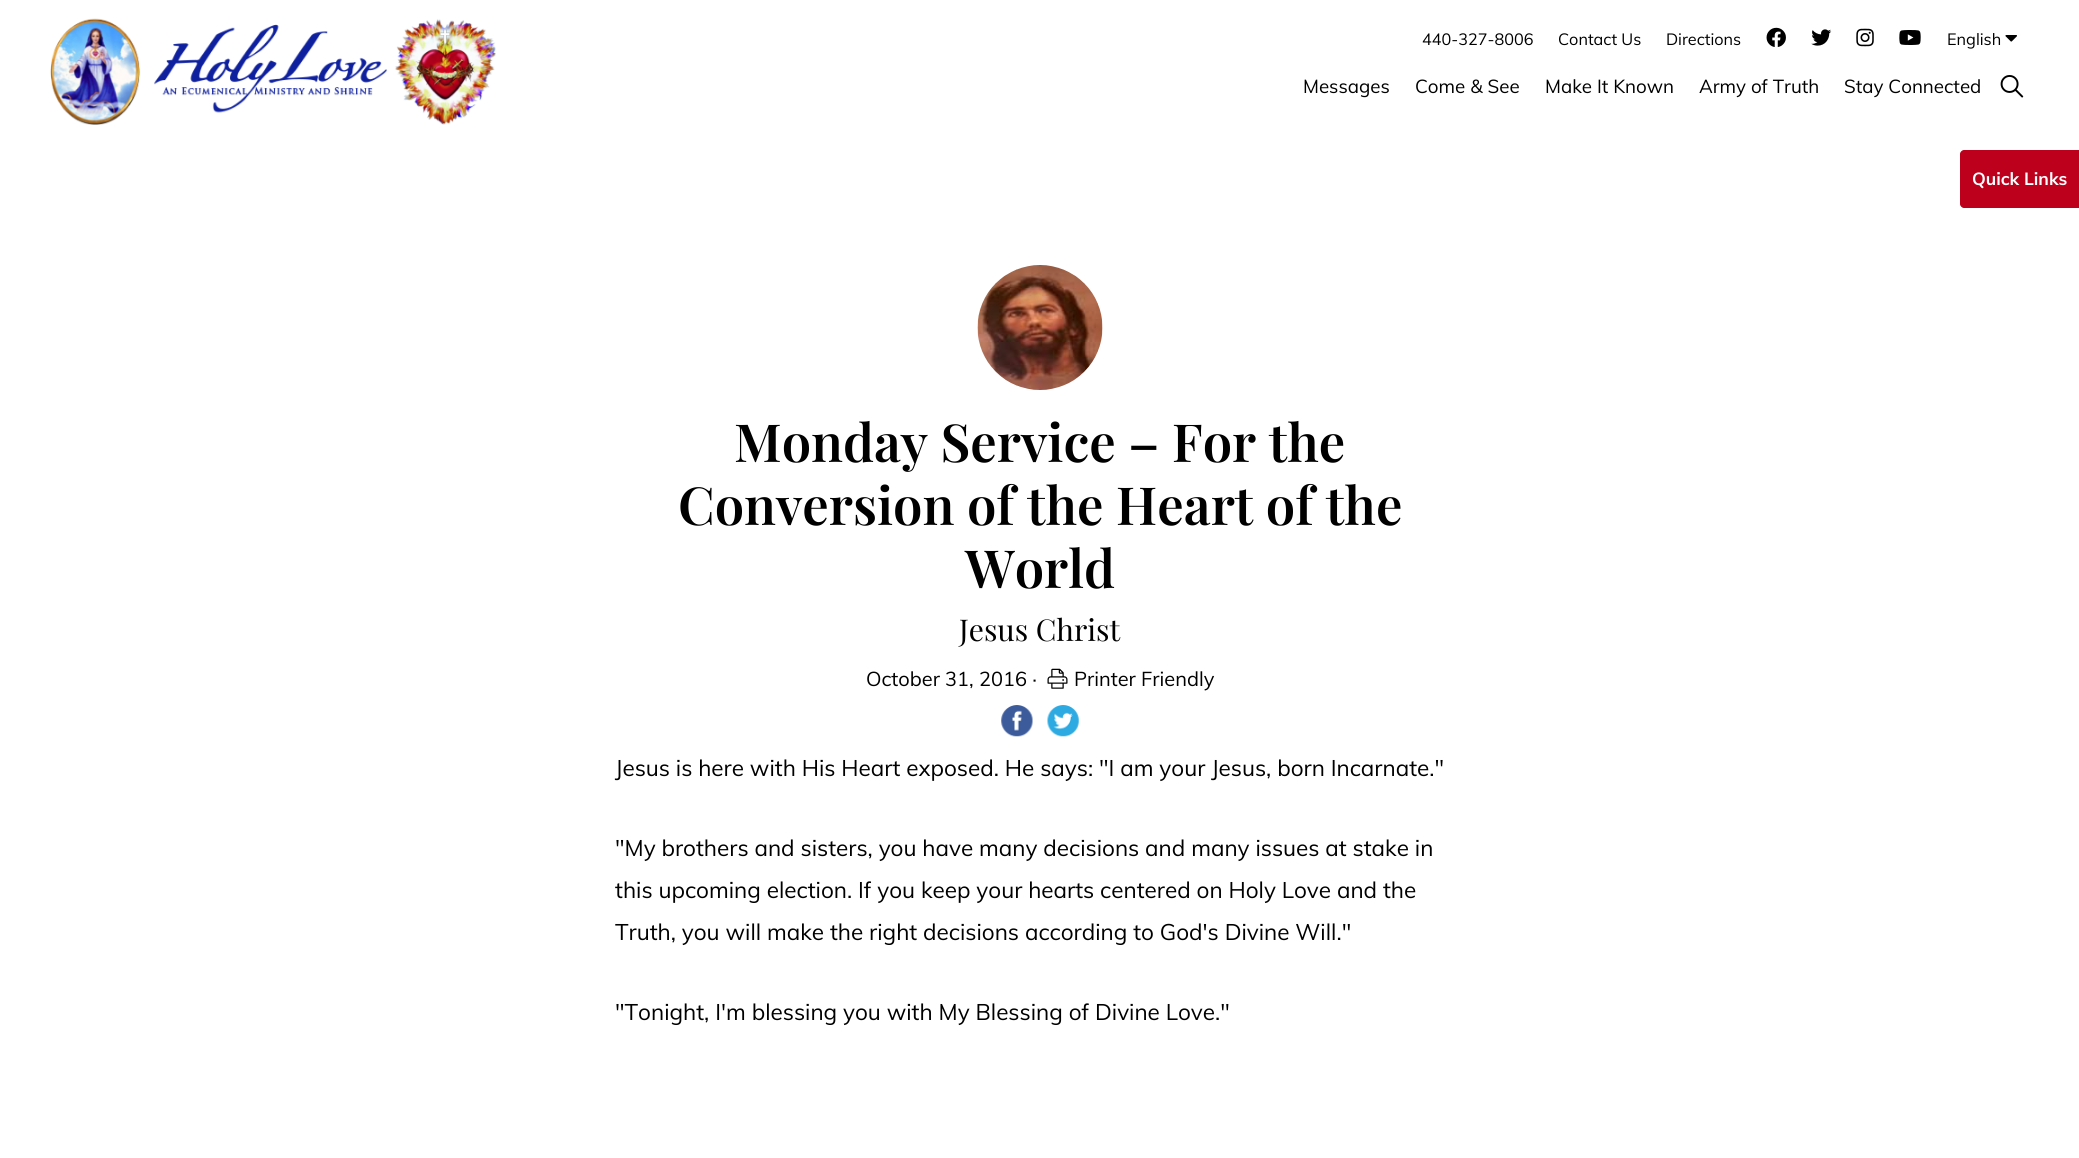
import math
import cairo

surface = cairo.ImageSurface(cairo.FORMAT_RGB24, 2079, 1158)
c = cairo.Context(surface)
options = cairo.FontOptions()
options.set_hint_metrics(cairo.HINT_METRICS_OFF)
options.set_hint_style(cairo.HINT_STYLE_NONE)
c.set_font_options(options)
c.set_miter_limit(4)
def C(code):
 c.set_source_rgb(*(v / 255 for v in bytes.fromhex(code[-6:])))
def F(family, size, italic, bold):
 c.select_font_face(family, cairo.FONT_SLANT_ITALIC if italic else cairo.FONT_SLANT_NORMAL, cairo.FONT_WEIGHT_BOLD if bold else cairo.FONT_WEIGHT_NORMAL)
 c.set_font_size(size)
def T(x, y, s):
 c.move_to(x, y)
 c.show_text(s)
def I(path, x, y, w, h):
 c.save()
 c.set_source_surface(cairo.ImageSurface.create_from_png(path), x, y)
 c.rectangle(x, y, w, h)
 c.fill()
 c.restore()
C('ffffff')
c.paint()
I('1.png',50,18,446,107)
F('Muli',16.25,0,0)
C('000000')
T(1422,45,'440-327-8006')
T(1558,45,'Contact Us')
T(1666,45,'Directions')
I('2.png',1766,27,20,20)
I('3.png',1811,29,21,17)
I('4.png',1856,28,18,19)
I('5.png',1899,30,22,15)
T(1947,45,'English')
I('6.png',2005,35,12,7)
F('Muli',18.75,0,0)
T(1303,93,'Messages')
T(1415,93,'Come & See')
T(1545,93,'Make It Known')
T(1699,93,'Army of Truth')
T(1844,93,'Stay Connected')
I('7.png',2000,75,24,23)
C('bd001b')
c.new_path()
c.move_to(1964,150)
c.line_to(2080,150)
c.line_to(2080,208)
c.line_to(1964,208)
c.curve_to(1962,208,1960,206,1960,204)
c.line_to(1960,154)
c.curve_to(1960,152,1962,150,1964,150)
c.close_path()
c.fill()
F('Muli',17.5,0,1)
C('ffffff')
T(1972,185,'Quick Links')
I('8.png',977,265,126,125)
F('Playfair Display SemiBold',52.5,0,0)
C('000000')
T(734,462,'Monday Service – For the')
T(678,525,'Conversion of the Heart of the')
T(965,588,'World')
F('Playfair Display',30,0,0)
T(959,641,'Jesus Christ')
F('Muli',20,0,0)
T(866,686,'October 31, 2016 ·')
I('9.png',1047,668,21,21)
T(1074,686,'Printer Friendly')
I('10.png',1001,705,32,32)
I('11.png',1047,705,32,32)
F('Muli',22.5,0,0)
T(615,776,'Jesus is here with His Heart exposed. He says: "I am your Jesus, born Incarnate."')
T(615,856,'"My brothers and sisters, you have many decisions and many issues at stake in')
T(615,898,'this upcoming election. If you keep your hearts centered on Holy Love and the')
T(615,940,'Truth, you will make the right decisions according to God\'s Divine Will."')
T(615,1020,'"Tonight, I\'m blessing you with My Blessing of Divine Love."')
surface.write_to_png('o.png')
